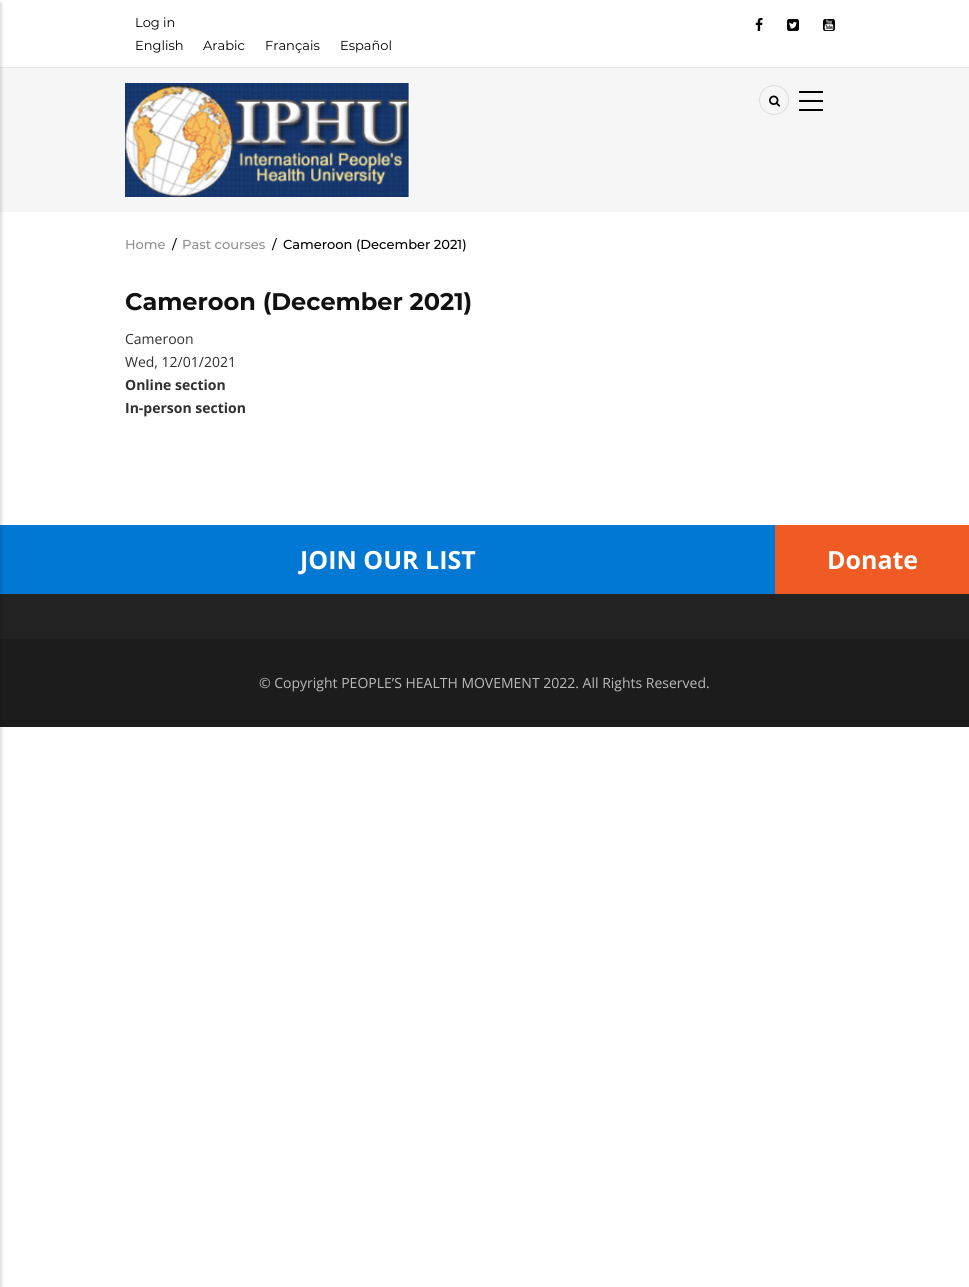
import math
import cairo

surface = cairo.ImageSurface(cairo.FORMAT_RGB24, 969, 1287)
c = cairo.Context(surface)
options = cairo.FontOptions()
options.set_hint_metrics(cairo.HINT_METRICS_OFF)
options.set_hint_style(cairo.HINT_STYLE_NONE)
c.set_font_options(options)
c.set_miter_limit(4)
def C(code):
 c.set_source_rgb(*(v / 255 for v in bytes.fromhex(code[-6:])))
def F(family, size, italic, bold):
 c.select_font_face(family, cairo.FONT_SLANT_ITALIC if italic else cairo.FONT_SLANT_NORMAL, cairo.FONT_WEIGHT_BOLD if bold else cairo.FONT_WEIGHT_NORMAL)
 c.set_font_size(size)
def T(x, y, s):
 c.move_to(x, y)
 c.show_text(s)
def R(x, y, w, h):
 c.rectangle(x, y, w, h)
 c.fill()
def Q(x, y, w, h, r):
 c.new_sub_path()
 for i, (u, v) in enumerate([(x + w - r, y + h - r), (x + r, y + h - r), (x + r, y + r), (x + w - r, y + r)]):
  c.arc(u, v, r, i * math.pi / 2, (i + 1) * math.pi / 2)
 c.close_path()
def S(x, y, w, h, r, blur, alpha):
 c.push_group_with_content(cairo.CONTENT_ALPHA)
 c.set_operator(cairo.OPERATOR_SOURCE)
 for i in range(15, -16, -2):
  e = blur * i / 6
  if min(w, h) + 2 * e > 0:
   c.set_source_rgba(0, 0, 0, alpha * math.erfc((i - 1) / 8.5) / 2)
   Q(x - e, y - e, w + 2 * e, h + 2 * e, max(0, min(r + e + blur * .6, min(w, h) / 2 + e)))
   c.fill()
 c.mask(c.pop_group())
def I(path, x, y, w, h):
 c.save()
 c.set_source_surface(cairo.ImageSurface.create_from_png(path), x, y)
 c.rectangle(x, y, w, h)
 c.fill()
 c.restore()
C('ffffff')
c.paint()
C('f6f6f6')
R(0,68,969,144)
C('e6e6e6')
R(0,67,969,1)
C('0178d3')
R(0,525,775,69)
C('222222')
R(0,594,969,45)
C('1c1c1c')
R(0,639,969,88)
C('000000')
S(-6,3,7,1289,0,2,.2)
c.arc(774,100,14.5,0,2 * math.pi)
C('dddddd')
c.set_line_width(1)
c.stroke()
I('1.png',769,95,12,12)
C('000000')
R(799,91,24,2)
R(799,100,24,2)
R(799,109,24,2)
I('2.png',125,83,285,114)
F('Montserrat',13,0,0)
T(135,27,'Log in')
T(135,50,'English')
T(203,50,'Arabic')
T(265,50,'Français')
T(340,50,'Español')
I('3.png',755,18,8,13)
I('4.png',787,19,12,12)
I('5.png',823,19,12,12)
F('Montserrat Medium',13,0,0)
C('909090')
T(125,249,'Home')
C('000000')
T(172,249,'/')
C('909090')
T(182,249,'Past courses')
C('000000')
T(272,249,'/')
T(283,249,'Cameroon (December 2021)')
F('Montserrat',24,0,1)
C('111111')
T(125,310,'Cameroon (December 2021)')
F('Open Sans',14,0,0)
C('303030')
T(125,344,'Cameroon')
T(125,367,'Wed, 12/01/2021')
F('Open Sans',14,0,1)
T(125,390,'Online section')
T(125,413,'In-person section')
F('Open Sans',25,0,1)
C('ffffff')
T(300,569,'JOIN OUR LIST')
C('f05a23')
R(775,525,194,69)
C('ffffff')
T(827,569,'Donate')
F('Open Sans',14,0,0)
C('bbbbbb')
T(259,688,'© Copyright PEOPLE’S HEALTH MOVEMENT 2022. All Rights Reserved.')
surface.write_to_png('o.png')
